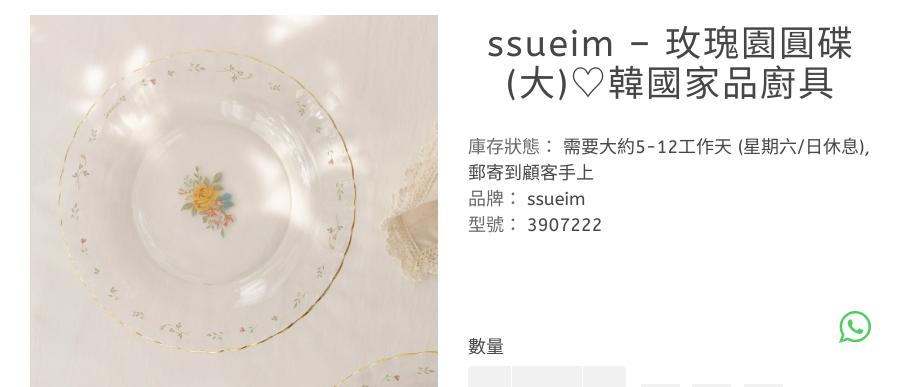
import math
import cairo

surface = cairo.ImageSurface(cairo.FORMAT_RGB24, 905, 387)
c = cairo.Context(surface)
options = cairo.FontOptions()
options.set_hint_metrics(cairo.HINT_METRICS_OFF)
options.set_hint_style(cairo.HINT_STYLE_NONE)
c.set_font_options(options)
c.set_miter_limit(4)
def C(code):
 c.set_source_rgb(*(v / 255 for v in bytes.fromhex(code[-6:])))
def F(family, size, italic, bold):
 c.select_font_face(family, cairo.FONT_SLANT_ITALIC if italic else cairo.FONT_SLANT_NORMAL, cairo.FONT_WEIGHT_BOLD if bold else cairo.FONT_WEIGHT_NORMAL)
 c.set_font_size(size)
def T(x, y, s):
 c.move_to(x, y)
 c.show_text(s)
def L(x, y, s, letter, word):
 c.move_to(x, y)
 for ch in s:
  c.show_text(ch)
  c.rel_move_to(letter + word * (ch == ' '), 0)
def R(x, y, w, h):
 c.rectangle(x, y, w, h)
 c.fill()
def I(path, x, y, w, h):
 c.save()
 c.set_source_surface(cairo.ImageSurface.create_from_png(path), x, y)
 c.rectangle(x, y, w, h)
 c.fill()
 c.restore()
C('ffffff')
c.paint()
I('1.png',30,15,408,372)
F('ABeeZee',36,0,0)
C('464646')
L(487,56,'ssueim –',2,0)
F('Noto Sans CJK HK',36,0,0)
L(665,56,'玫瑰園圓碟',2,0)
F('ABeeZee',36,0,0)
L(506,96,'(',2,0)
F('Noto Sans CJK HK',36,0,0)
L(519,96,'大',2,0)
F('ABeeZee',36,0,0)
L(557,96,')',2,0)
F('Noto Sans CJK HK',36,0,0)
L(570,96,'♡韓國家品廚具',2,0)
F('Noto Sans CJK HK',18,0,0)
C('6a6a6a')
T(468,153,'庫存狀態：')
C('464646')
T(563,153,'需要大約')
F('ABeeZee',18,0,0)
T(635,153,'5-12')
F('Noto Sans CJK HK',18,0,0)
T(678,153,'工作天')
F('ABeeZee',18,0,0)
T(738,153,'(')
F('Noto Sans CJK HK',18,0,0)
T(743,153,'星期六')
F('ABeeZee',18,0,0)
T(797,153,'/')
F('Noto Sans CJK HK',18,0,0)
T(805,153,'日休息')
F('ABeeZee',18,0,0)
T(859,153,'),')
F('Noto Sans CJK HK',18,0,0)
T(468,179,'郵寄到顧客手上')
C('6a6a6a')
T(468,205,'品牌：')
F('ABeeZee',18,0,0)
C('464646')
T(527,205,'ssueim')
F('Noto Sans CJK HK',18,0,0)
C('6a6a6a')
T(468,231,'型號：')
F('ABeeZee',18,0,0)
C('464646')
T(527,231,'3907222')
F('Noto Sans CJK HK',18,0,0)
T(468,353,'數量')
C('f1f1f1')
c.new_path()
c.move_to(472,367.5)
c.line_to(509.5,367.5)
c.line_to(509.5,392.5)
c.line_to(472,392.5)
c.curve_to(470.5,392.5,469.5,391.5,469.5,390)
c.line_to(469.5,370)
c.curve_to(469.5,368.5,470.5,367.5,472,367.5)
c.close_path()
c.fill_preserve()
c.set_line_width(3)
c.stroke()
R(512,366,70,21)
c.new_path()
c.move_to(584.5,367.5)
c.line_to(622,367.5)
c.curve_to(623.5,367.5,624.5,368.5,624.5,370)
c.line_to(624.5,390)
c.curve_to(624.5,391.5,623.5,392.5,622,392.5)
c.line_to(584.5,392.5)
c.close_path()
c.fill_preserve()
c.stroke()
R(641,384,39,3)
R(692,384,39,3)
R(744,384,39,3)
I('2.png',839,311,32,32)
surface.write_to_png('o.png')
